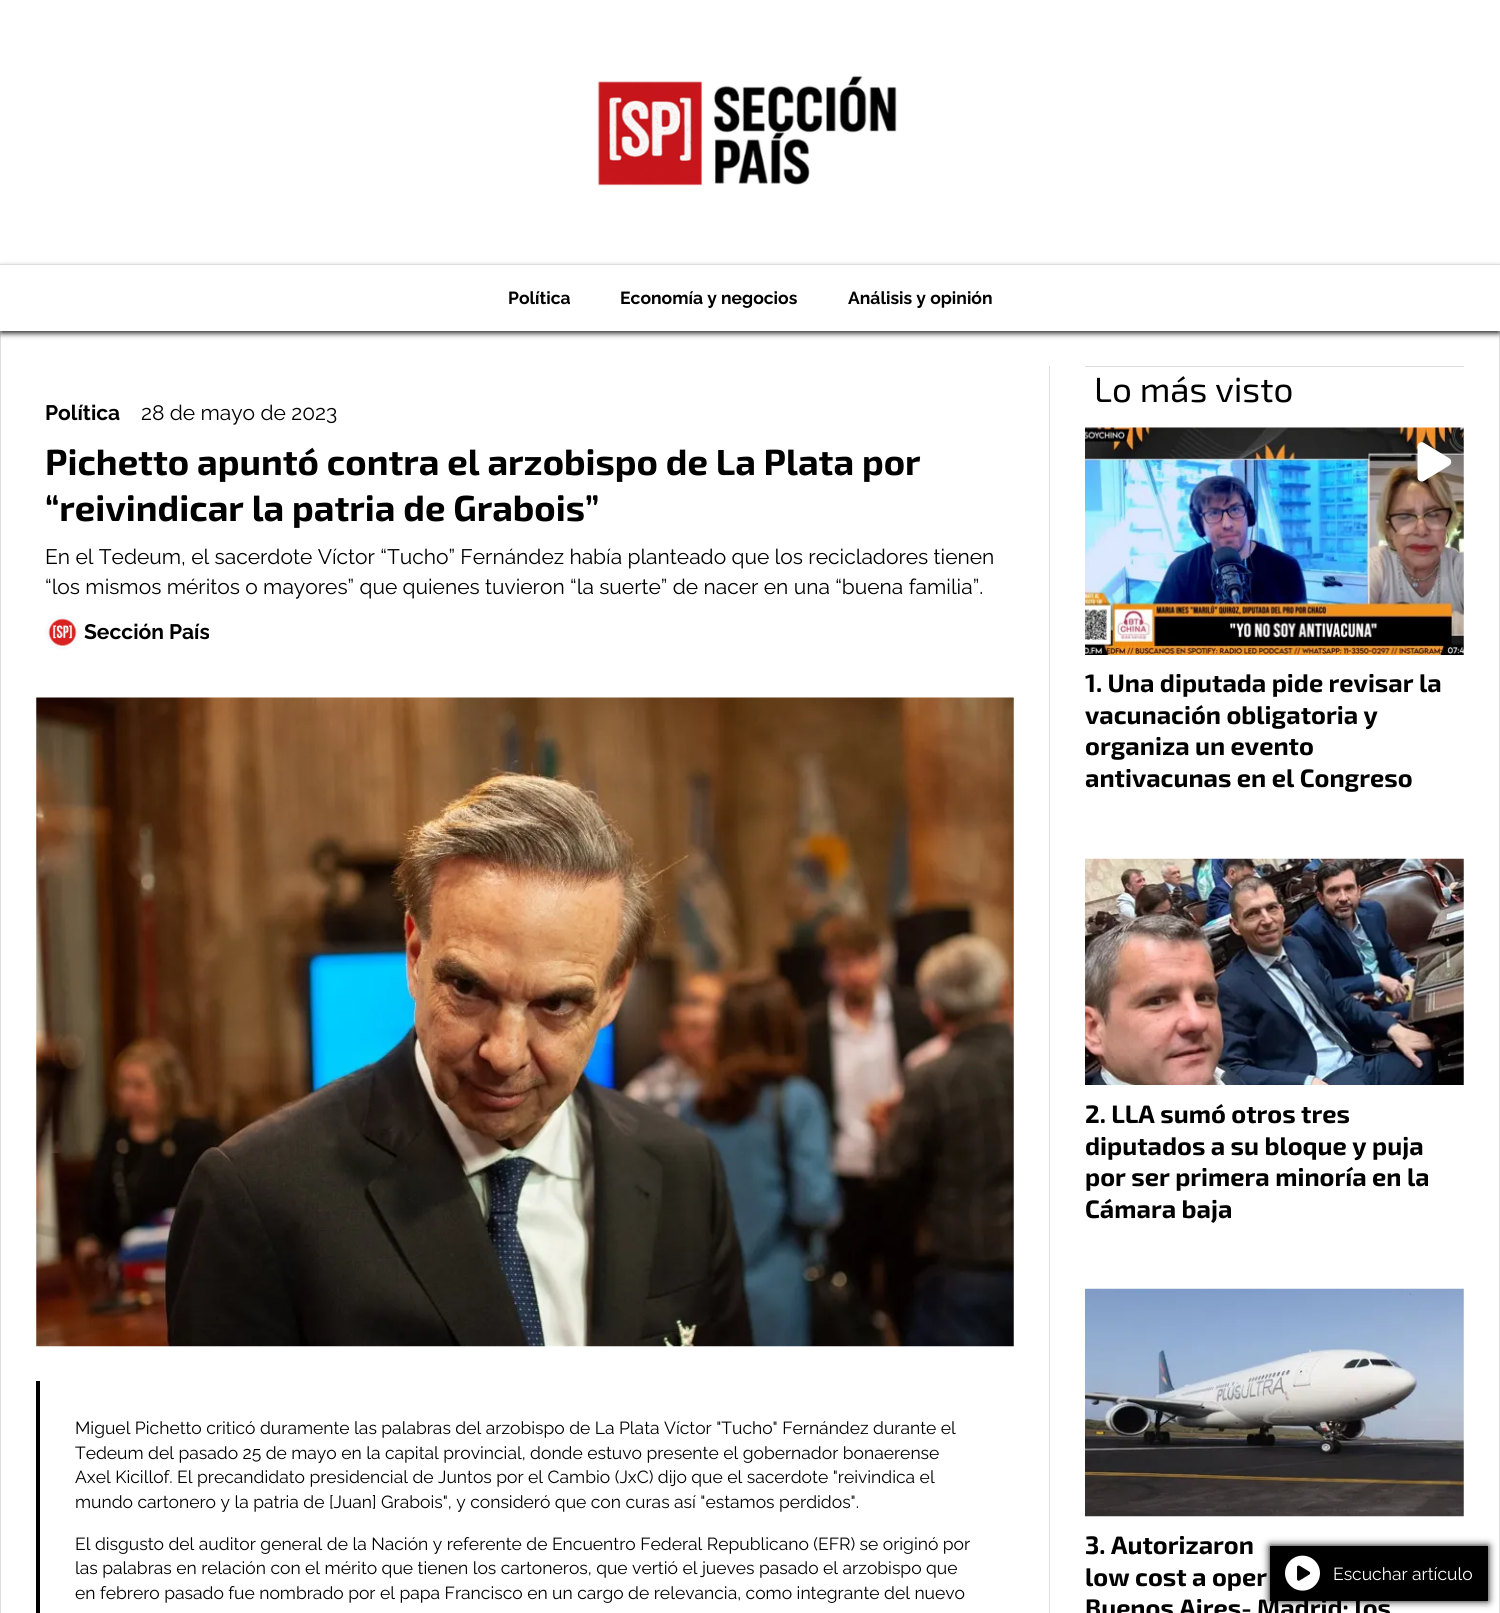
import math
import cairo

surface = cairo.ImageSurface(cairo.FORMAT_RGB24, 1500, 1613)
c = cairo.Context(surface)
options = cairo.FontOptions()
options.set_hint_metrics(cairo.HINT_METRICS_OFF)
options.set_hint_style(cairo.HINT_STYLE_NONE)
c.set_font_options(options)
c.set_miter_limit(4)
def C(code):
 c.set_source_rgb(*(v / 255 for v in bytes.fromhex(code[-6:])))
def F(family, size, italic, bold):
 c.select_font_face(family, cairo.FONT_SLANT_ITALIC if italic else cairo.FONT_SLANT_NORMAL, cairo.FONT_WEIGHT_BOLD if bold else cairo.FONT_WEIGHT_NORMAL)
 c.set_font_size(size)
def T(x, y, s):
 c.move_to(x, y)
 c.show_text(s)
def R(x, y, w, h):
 c.rectangle(x, y, w, h)
 c.fill()
def Q(x, y, w, h, r):
 c.new_sub_path()
 for i, (u, v) in enumerate([(x + w - r, y + h - r), (x + r, y + h - r), (x + r, y + r), (x + w - r, y + r)]):
  c.arc(u, v, r, i * math.pi / 2, (i + 1) * math.pi / 2)
 c.close_path()
def S(x, y, w, h, r, blur, alpha):
 c.push_group_with_content(cairo.CONTENT_ALPHA)
 c.set_operator(cairo.OPERATOR_SOURCE)
 for i in range(15, -16, -2):
  e = blur * i / 6
  if min(w, h) + 2 * e > 0:
   c.set_source_rgba(0, 0, 0, alpha * math.erfc((i - 1) / 8.5) / 2)
   Q(x - e, y - e, w + 2 * e, h + 2 * e, max(0, min(r + e + blur * .6, min(w, h) / 2 + e)))
   c.fill()
 c.mask(c.pop_group())
def I(path, x, y, w, h):
 c.save()
 c.set_source_surface(cairo.ImageSurface.create_from_png(path), x, y)
 c.rectangle(x, y, w, h)
 c.fill()
 c.restore()
C('ffffff')
c.paint()
I('1.png',597,75,300,111)
C('dddddd')
R(1499,331,1,1282)
R(0,331,1,1282)
c.save()
c.set_fill_rule(cairo.FILL_RULE_EVEN_ODD)
c.new_path()
c.move_to(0,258)
c.line_to(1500,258)
c.line_to(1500,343)
c.line_to(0,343)
c.close_path()
c.move_to(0,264)
c.line_to(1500,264)
c.line_to(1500,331)
c.line_to(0,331)
c.close_path()
c.clip()
C('171717')
S(1,268,1498,65,0,3,1)
c.restore()
R(0,264,1500,1)
F('Raleway',17.5,0,1)
C('000000')
T(508,304,'Política')
T(620,304,'Economía y negocios')
T(848,304,'Análisis y opinión')
F('Raleway',21,0,1)
T(45,420,'Política')
F('Raleway',21,0,0)
T(141,420,'28 de mayo de 2023')
F('Exo 2',36.25,0,1)
T(45,475,'Pichetto apuntó contra el arzobispo de La Plata por')
T(45,521,'“reivindicar la patria de Grabois”')
F('Raleway',21,0,0)
T(45,564,'En el Tedeum, el sacerdote Víctor “Tucho” Fernández había planteado que los recicladores tienen')
T(45,594,'“los mismos méritos o mayores” que quienes tuvieron “la suerte” de nacer en una “buena familia”.')
I('2.png',45,615,35,35)
F('Raleway',21,0,1)
T(84,639,'Sección País')
C('dddddd')
R(1049,366,1,1247)
R(1085,366,379,1)
F('Exo 2',35,0,0)
C('000000')
T(1094,402,'Lo más visto')
I('3.png',1085,427,379,228)
I('4.png',1417,442,35,40)
F('Exo 2',25.25,0,1)
T(1085,692,'1. Una diputada pide revisar la')
T(1085,724,'vacunación obligatoria y')
T(1085,755,'organiza un evento')
T(1085,787,'antivacunas en el Congreso')
I('5.png',1085,858,379,227)
T(1085,1123,'2. LLA sumó otros tres')
T(1085,1155,'diputados a su bloque y puja')
T(1085,1186,'por ser primera minoría en la')
T(1085,1218,'Cámara baja')
I('6.png',1085,1288,379,229)
T(1085,1554,'3. Autorizaron')
T(1085,1586,'low cost a oper')
T(1085,1617,'Buenos Aires- Madrid: los')
I('7.png',36,697,978,650)
R(36,1381,4,232)
F('Raleway',17.5,0,0)
T(75,1434,'Miguel Pichetto criticó duramente las palabras del arzobispo de La Plata Víctor "Tucho" Fernández durante el')
T(75,1459,'Tedeum del pasado 25 de mayo en la capital provincial, donde estuvo presente el gobernador bonaerense')
T(75,1483,'Axel Kicillof. El precandidato presidencial de Juntos por el Cambio (JxC) dijo que el sacerdote "reivindica el')
T(75,1508,'mundo cartonero y la patria de [Juan] Grabois", y consideró que con curas así "estamos perdidos".')
T(75,1550,'El disgusto del auditor general de la Nación y referente de Encuentro Federal Republicano (EFR) se originó por')
T(75,1574,'las palabras en relación con el mérito que tienen los cartoneros, que vertió el jueves pasado el arzobispo que')
T(75,1599,'en febrero pasado fue nombrado por el papa Francisco en un cargo de relevancia, como integrante del nuevo')
C('000000')
S(1270,1546,218,55,0,4,1)
C('000000')
R(1270,1546,218,55)
I('8.png',1285,1555,35,36)
C('ffffff')
T(1333,1580,'Escuchar artículo')
surface.write_to_png('o.png')
